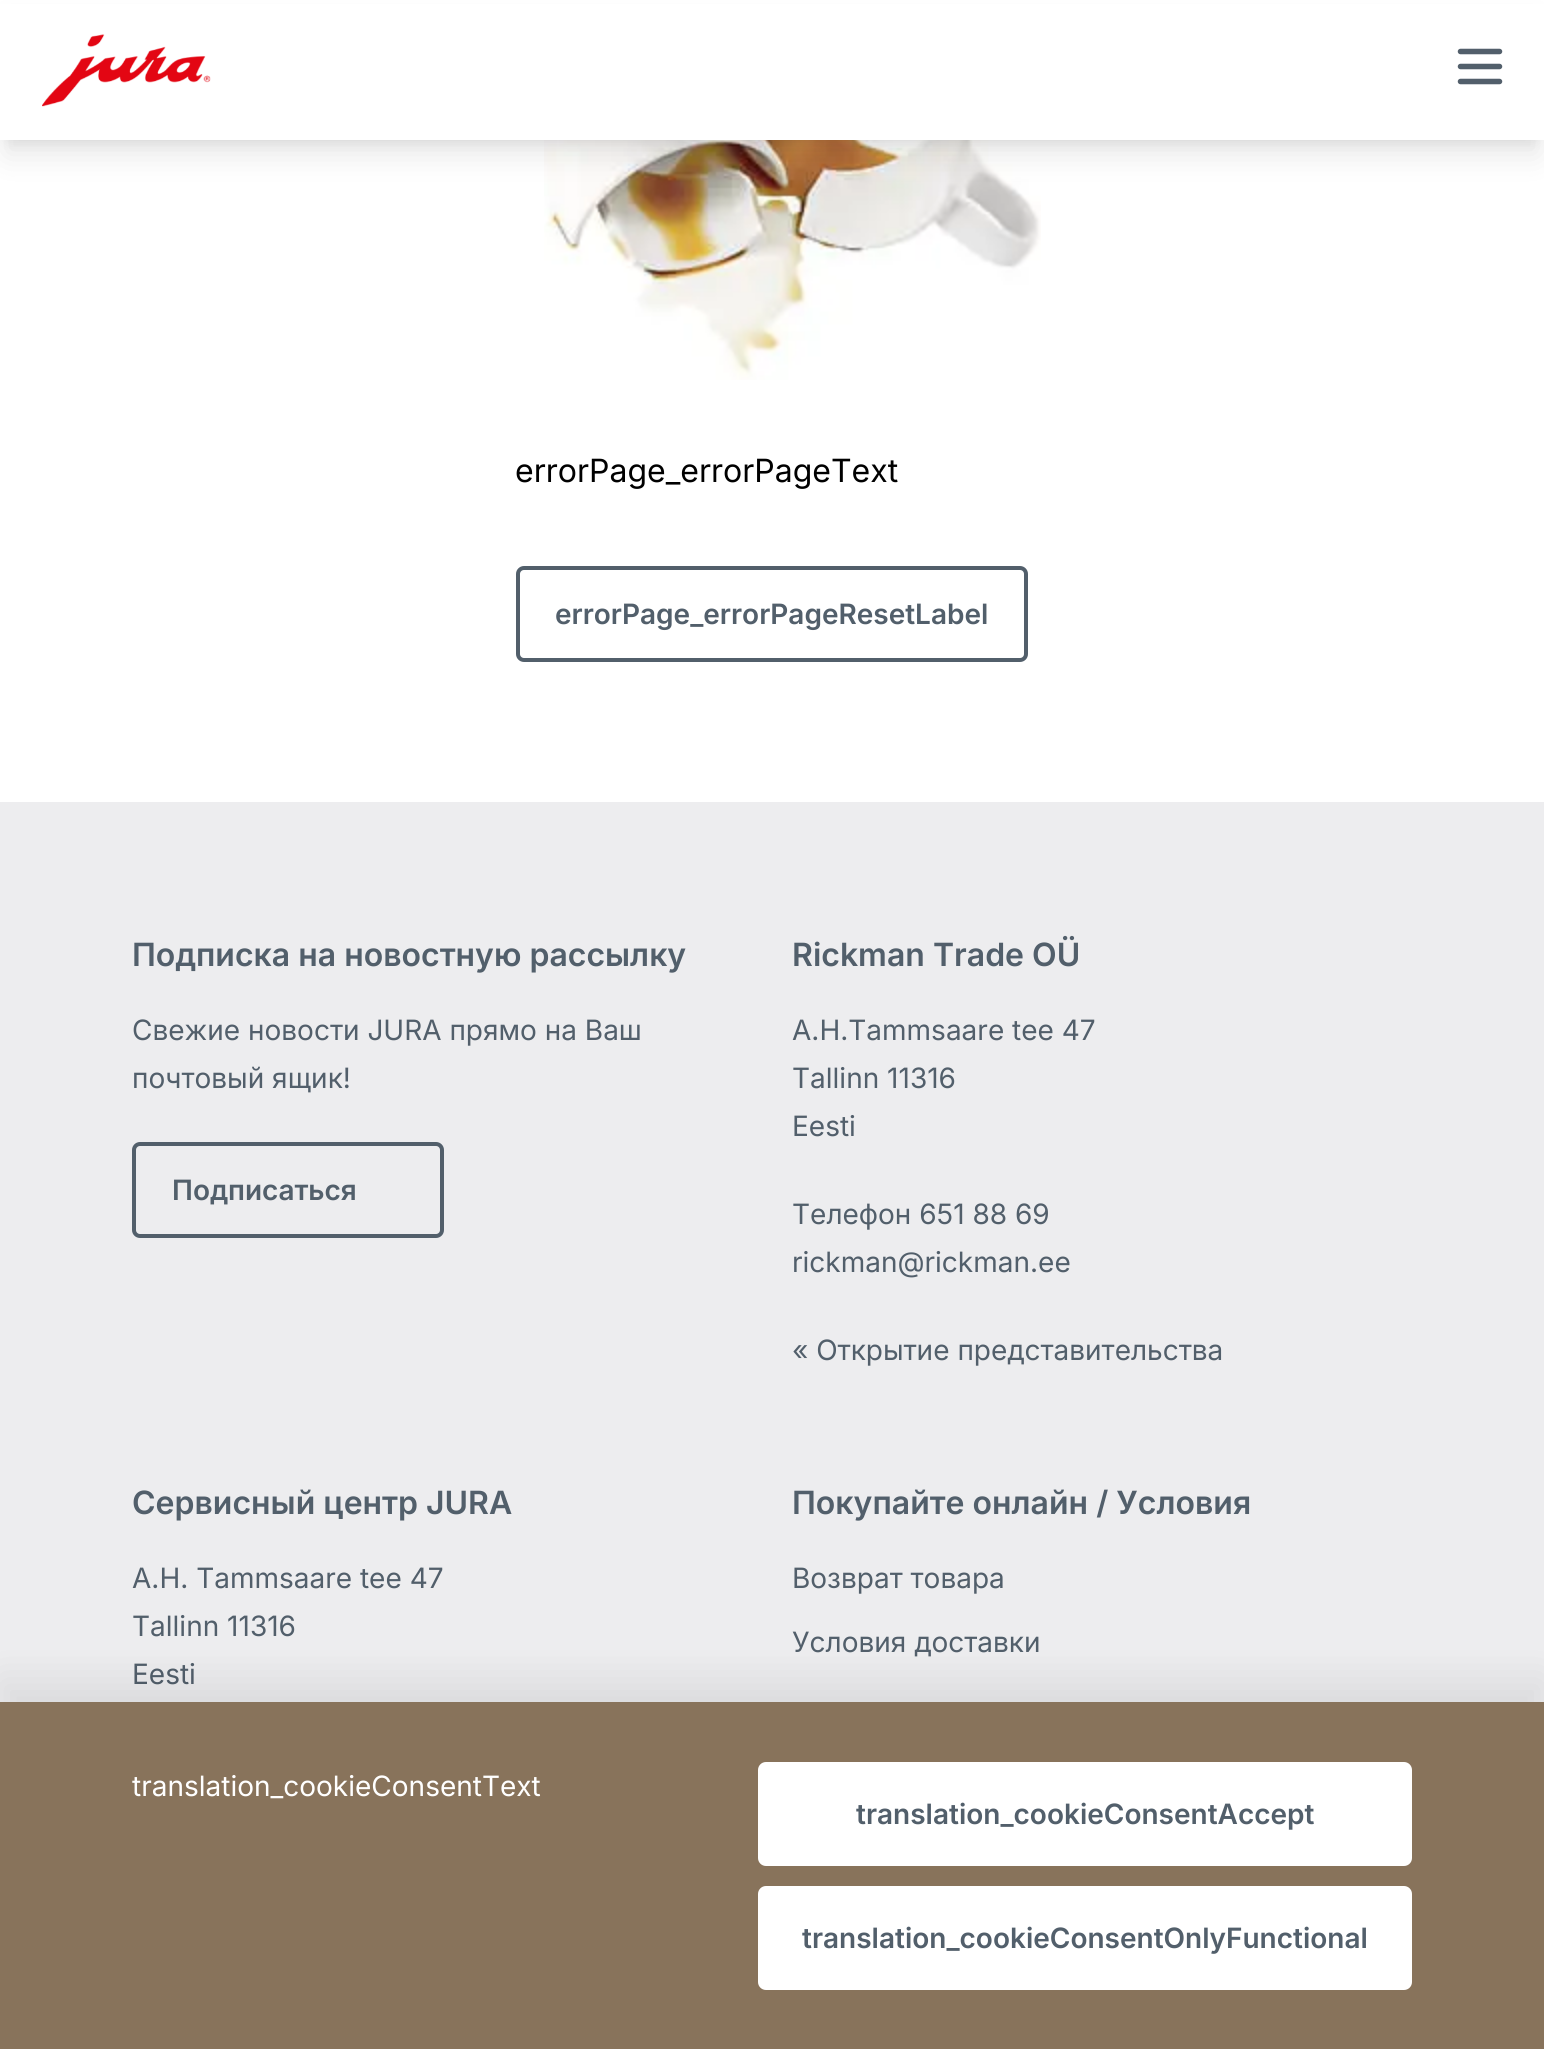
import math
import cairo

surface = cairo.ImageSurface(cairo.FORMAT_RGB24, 1544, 2049)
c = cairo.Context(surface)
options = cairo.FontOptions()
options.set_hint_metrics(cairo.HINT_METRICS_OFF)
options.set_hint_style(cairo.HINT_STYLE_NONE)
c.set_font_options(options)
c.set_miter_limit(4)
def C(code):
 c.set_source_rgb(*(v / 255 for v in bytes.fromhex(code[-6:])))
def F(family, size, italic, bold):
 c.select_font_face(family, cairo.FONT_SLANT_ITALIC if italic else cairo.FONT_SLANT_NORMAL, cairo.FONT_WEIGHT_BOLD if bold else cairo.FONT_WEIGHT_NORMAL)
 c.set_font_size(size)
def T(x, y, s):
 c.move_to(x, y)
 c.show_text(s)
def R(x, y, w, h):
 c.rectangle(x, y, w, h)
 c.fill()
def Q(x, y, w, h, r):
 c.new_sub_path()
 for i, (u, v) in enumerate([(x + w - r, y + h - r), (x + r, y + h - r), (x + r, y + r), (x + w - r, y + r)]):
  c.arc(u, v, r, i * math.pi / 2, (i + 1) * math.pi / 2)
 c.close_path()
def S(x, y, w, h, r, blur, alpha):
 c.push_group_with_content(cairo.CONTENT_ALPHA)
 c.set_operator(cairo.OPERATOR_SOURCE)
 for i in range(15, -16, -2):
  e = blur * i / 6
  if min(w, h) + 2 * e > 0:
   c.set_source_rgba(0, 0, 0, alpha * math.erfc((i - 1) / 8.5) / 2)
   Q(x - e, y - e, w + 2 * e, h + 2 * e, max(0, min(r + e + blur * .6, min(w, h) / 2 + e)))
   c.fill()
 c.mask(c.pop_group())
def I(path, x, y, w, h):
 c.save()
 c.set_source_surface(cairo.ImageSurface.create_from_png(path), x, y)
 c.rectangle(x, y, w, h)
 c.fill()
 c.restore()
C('ffffff')
c.paint()
I('2.png',544,140,497,240)
C('000000')
S(8,16,1528,124,0,6,.1)
S(6,26,1532,128,0,15,.1)
C('ffffff')
R(0,4,1544,136)
I('1.png',42,34,169,73)
c.new_path()
c.move_to(1460.5,51.5)
c.line_to(1499.5,51.5)
c.move_to(1460.5,66.5)
c.line_to(1499.5,66.5)
c.move_to(1460.5,81.5)
c.line_to(1499.5,81.5)
C('525f6b')
c.set_line_width(5.5)
c.set_line_cap(cairo.LINE_CAP_ROUND)
c.stroke()
F('Inter',32,0,0)
C('000000')
T(515,482,'errorPage_errorPageText')
Q(518,568,508,92,6)
C('525f6b')
c.set_line_width(4)
c.set_line_cap(cairo.LINE_CAP_BUTT)
c.stroke()
F('Inter SemiBold',28,0,0)
T(555,624,'errorPage_errorPageResetLabel')
C('ededef')
R(0,802,1544,900)
F('Inter SemiBold',32,0,0)
C('525f6b')
T(132,966,'Подписка на новостную рассылку')
F('Inter',28,0,0)
T(132,1040,'Свежие новости JURA прямо на Ваш')
T(132,1088,'почтовый ящик!')
Q(134,1144,308,92,6)
c.stroke()
F('Inter SemiBold',28,0,0)
T(172,1200,'Подписаться')
F('Inter SemiBold',32,0,0)
T(792,966,'Rickman Trade OÜ')
F('Inter',28,0,0)
T(792,1040,'A.H.Tammsaare tee 47')
T(792,1088,'Tallinn 11316')
T(792,1136,'Eesti')
T(792,1224,'Телефон 651 88 69')
T(792,1272,'rickman@rickman.ee')
T(792,1360,'« Открытие представительства')
F('Inter SemiBold',32,0,0)
T(132,1514,'Сервисный центр JURA')
F('Inter',28,0,0)
T(132,1588,'A.H. Tammsaare tee 47')
T(132,1636,'Tallinn 11316')
T(132,1684,'Eesti')
F('Inter SemiBold',32,0,0)
T(792,1514,'Покупайте онлайн / Условия')
F('Inter',28,0,0)
T(792,1588,'Возврат товара')
T(792,1652,'Условия доставки')
C('000000')
S(0,1680,1544,348,0,20,.08)
C('88735b')
R(0,1702,1544,347)
C('ffffff')
T(132,1796,'translation_cookieConsentText')
Q(760,1764,650,100,6)
c.fill_preserve()
c.stroke()
F('Inter SemiBold',28,0,0)
C('525f6b')
T(856,1824,'translation_cookieConsentAccept')
C('ffffff')
Q(760,1888,650,100,6)
c.fill_preserve()
c.stroke()
C('525f6b')
T(802,1948,'translation_cookieConsentOnlyFunctional')
surface.write_to_png('o.png')
